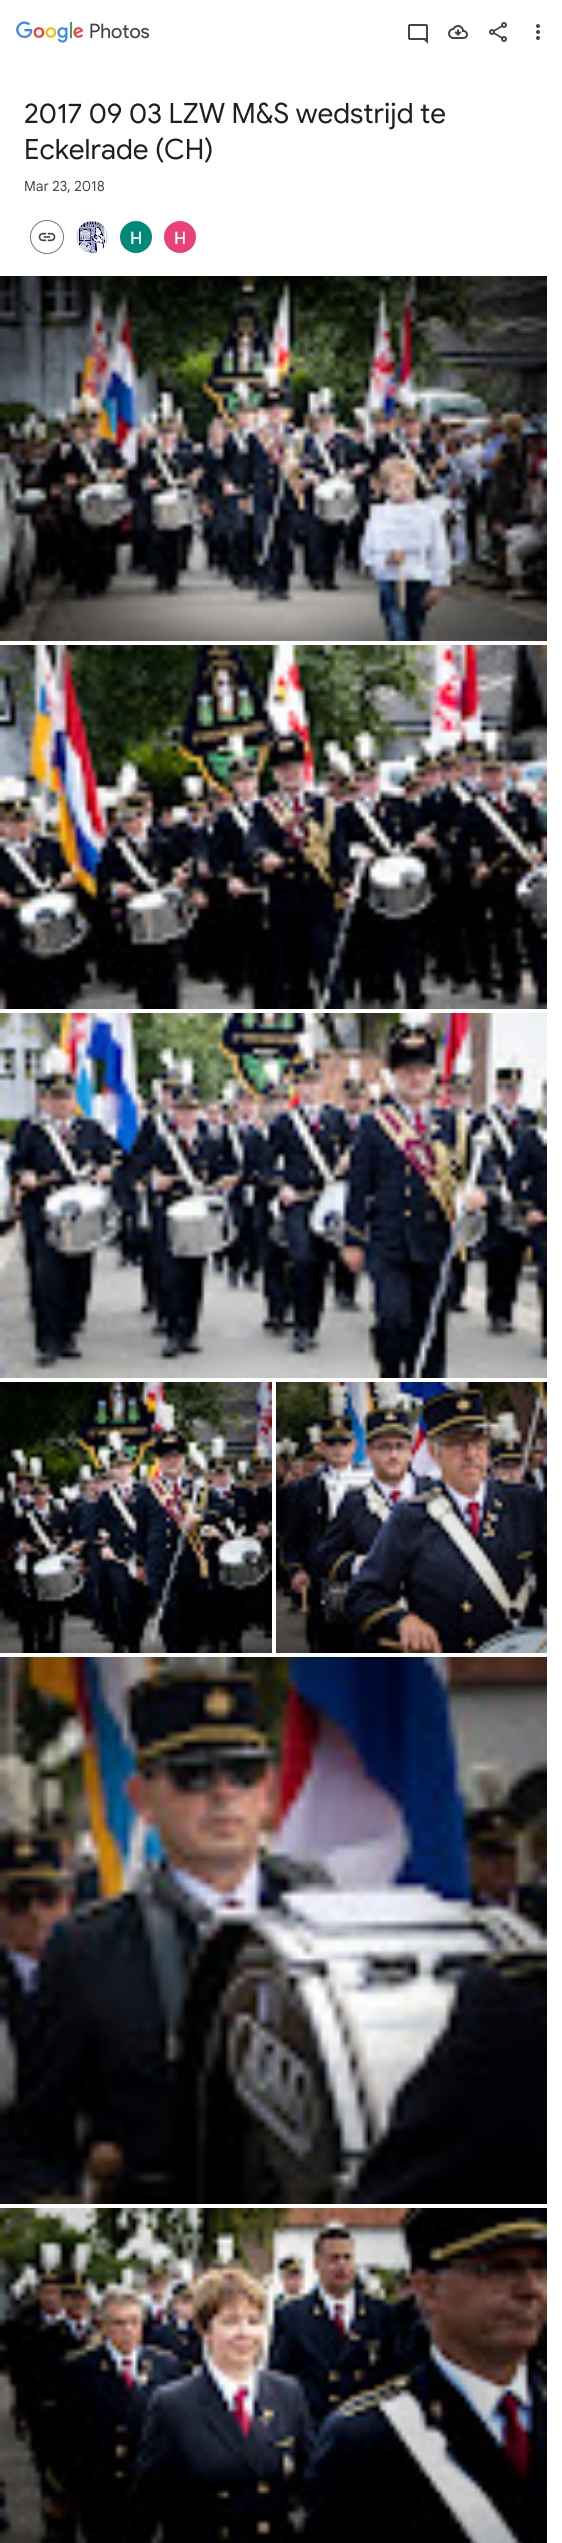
import math
import cairo

surface = cairo.ImageSurface(cairo.FORMAT_RGB24, 562, 2543)
c = cairo.Context(surface)
options = cairo.FontOptions()
options.set_hint_metrics(cairo.HINT_METRICS_OFF)
options.set_hint_style(cairo.HINT_STYLE_NONE)
c.set_font_options(options)
c.set_miter_limit(4)
def C(code):
 c.set_source_rgb(*(v / 255 for v in bytes.fromhex(code[-6:])))
def F(family, size, italic, bold):
 c.select_font_face(family, cairo.FONT_SLANT_ITALIC if italic else cairo.FONT_SLANT_NORMAL, cairo.FONT_WEIGHT_BOLD if bold else cairo.FONT_WEIGHT_NORMAL)
 c.set_font_size(size)
def T(x, y, s):
 c.move_to(x, y)
 c.show_text(s)
def I(path, x, y, w, h):
 c.save()
 c.set_source_surface(cairo.ImageSurface.create_from_png(path), x, y)
 c.rectangle(x, y, w, h)
 c.fill()
 c.restore()
C('ffffff')
c.paint()
I('1.png',16,21,68,22)
F('Product Sans',20,0,0)
C('444746')
T(89,38,'Photos')
I('2.png',408,24,20,20)
I('3.png',448,25,20,14)
I('4.png',489,22,18,20)
I('5.png',536,24,4,16)
F('Google Sans',28,0,0)
C('1f1f1f')
T(24,123,'2017 09 03 LZW M&S wedstrijd te')
T(24,159,'Eckelrade (CH)')
F('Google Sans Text',14,0,0)
C('444746')
T(24,191,'Mar 23, 2018')
c.new_path()
c.arc(47,237,16.5,0,2 * math.pi)
C('747775')
c.set_line_width(1)
c.stroke()
I('6.png',38,232,18,10)
I('7.png',76,221,32,32)
I('8.png',120,221,32,32)
I('9.png',164,221,32,32)
I('10.png',0,276,547,365)
I('11.png',0,645,547,364)
I('12.png',0,1013,547,365)
I('13.png',0,1382,272,271)
I('14.png',276,1382,271,271)
I('15.png',0,1657,547,547)
I('16.png',0,2208,547,335)
surface.write_to_png('o.png')
